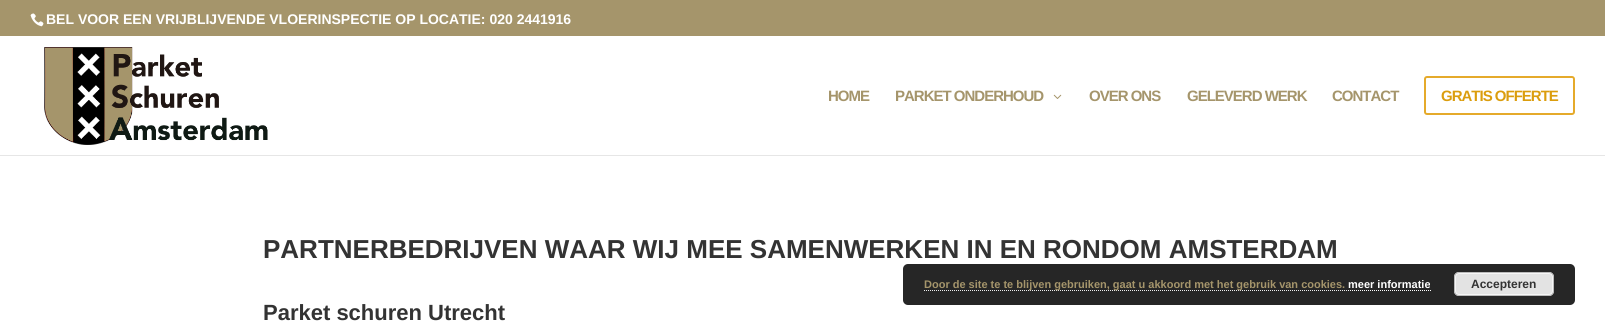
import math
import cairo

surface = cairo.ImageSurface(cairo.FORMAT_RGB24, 1605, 335)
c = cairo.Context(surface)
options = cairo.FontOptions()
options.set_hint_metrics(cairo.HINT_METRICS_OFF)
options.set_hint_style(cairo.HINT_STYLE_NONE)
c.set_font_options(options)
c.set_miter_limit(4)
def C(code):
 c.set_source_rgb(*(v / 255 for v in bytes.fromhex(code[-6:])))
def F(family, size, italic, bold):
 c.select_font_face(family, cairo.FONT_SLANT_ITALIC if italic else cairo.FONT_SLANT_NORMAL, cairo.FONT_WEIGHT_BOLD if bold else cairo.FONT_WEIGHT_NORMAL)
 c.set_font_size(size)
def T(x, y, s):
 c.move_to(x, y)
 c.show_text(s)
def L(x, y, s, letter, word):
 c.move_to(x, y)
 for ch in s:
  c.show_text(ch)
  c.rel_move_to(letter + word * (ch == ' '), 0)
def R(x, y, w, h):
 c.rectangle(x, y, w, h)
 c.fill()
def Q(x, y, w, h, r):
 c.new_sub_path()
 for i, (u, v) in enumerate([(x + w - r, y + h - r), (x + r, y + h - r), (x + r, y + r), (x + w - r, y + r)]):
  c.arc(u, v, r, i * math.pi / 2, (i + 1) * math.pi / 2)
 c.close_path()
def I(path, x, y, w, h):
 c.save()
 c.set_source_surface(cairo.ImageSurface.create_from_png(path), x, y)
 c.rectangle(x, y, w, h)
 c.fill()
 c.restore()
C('ffffff')
c.paint()
C('a5956b')
R(0,0,1605,36)
I('1.png',30,13,14,14)
F('Arimo',14,0,1)
C('ffffff')
T(46,24,'BEL VOOR EEN VRIJBLIJVENDE VLOERINSPECTIE OP LOCATIE: 020 2441916')
C('e6e6e6')
R(0,155,1605,1)
I('2.png',44,47,224,98)
F('Arimo',15,0,1)
C('a5956b')
L(828,101,'HOME',-1,0)
L(895,101,'PARKET ONDERHOUD',-1,0)
I('3.png',1053,94,9,5)
L(1089,101,'OVER ONS',-1,0)
L(1187,101,'GELEVERD WERK',-1,0)
L(1332,101,'CONTACT',-1,0)
Q(1425,77,149,37,2)
C('e5aa2b')
c.stroke()
C('db9d0d')
L(1441,101,'GRATIS OFFERTE',-1,0)
F('Arimo',26,0,1)
C('333333')
T(263,258,'PARTNERBEDRIJVEN WAAR WIJ MEE SAMENWERKEN IN EN RONDOM AMSTERDAM')
F('Arimo',22,0,1)
T(263,320,'Parket schuren Utrecht')
C('262626')
Q(903,264,672,41,5)
c.fill()
c.new_path()
c.move_to(924,290.5)
c.line_to(1348,290.5)
C('eeeeee')
c.set_line_width(1)
c.set_dash([1,1])
c.stroke()
F('Liberation Sans',11,0,1)
C('a5956b')
T(924,288,'Door de site te te blijven gebruiken, gaat u akkoord met het gebruik van cookies.')
C('ffffff')
T(1348,288,'meer informatie')
c.new_path()
c.move_to(1348,290.5)
c.line_to(1431,290.5)
c.stroke()
C('e3e3e3')
Q(1454,272,100,24,5)
c.fill()
Q(1455.5,273.5,97,21,3.5)
C('f6f6f6')
c.set_dash([])
c.stroke()
Q(1454.5,272.5,99,23,4.5)
C('bbbbbb')
c.stroke()
F('Liberation Sans',12,0,1)
C('333333')
T(1471,288,'Accepteren')
surface.write_to_png('o.png')
